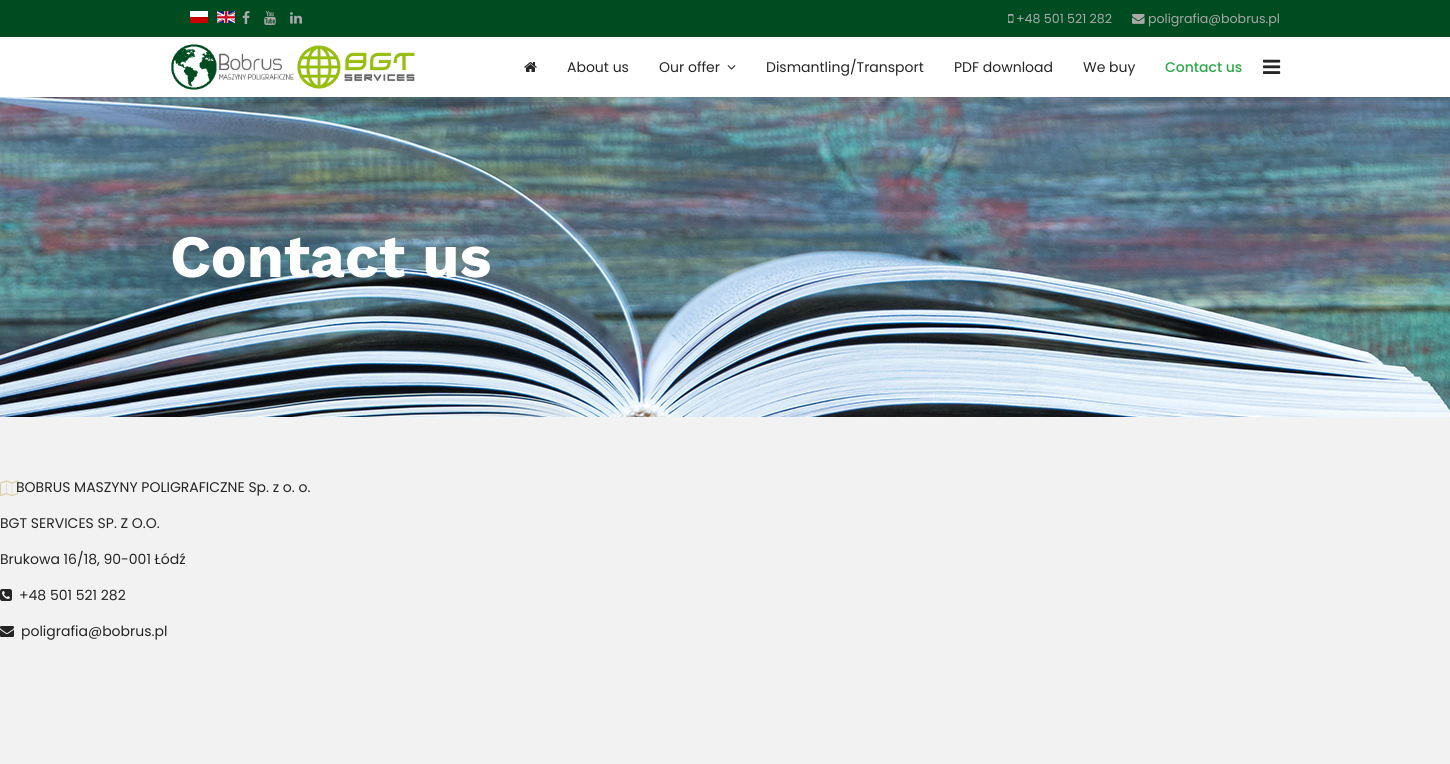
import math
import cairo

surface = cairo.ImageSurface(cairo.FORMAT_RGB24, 1450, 764)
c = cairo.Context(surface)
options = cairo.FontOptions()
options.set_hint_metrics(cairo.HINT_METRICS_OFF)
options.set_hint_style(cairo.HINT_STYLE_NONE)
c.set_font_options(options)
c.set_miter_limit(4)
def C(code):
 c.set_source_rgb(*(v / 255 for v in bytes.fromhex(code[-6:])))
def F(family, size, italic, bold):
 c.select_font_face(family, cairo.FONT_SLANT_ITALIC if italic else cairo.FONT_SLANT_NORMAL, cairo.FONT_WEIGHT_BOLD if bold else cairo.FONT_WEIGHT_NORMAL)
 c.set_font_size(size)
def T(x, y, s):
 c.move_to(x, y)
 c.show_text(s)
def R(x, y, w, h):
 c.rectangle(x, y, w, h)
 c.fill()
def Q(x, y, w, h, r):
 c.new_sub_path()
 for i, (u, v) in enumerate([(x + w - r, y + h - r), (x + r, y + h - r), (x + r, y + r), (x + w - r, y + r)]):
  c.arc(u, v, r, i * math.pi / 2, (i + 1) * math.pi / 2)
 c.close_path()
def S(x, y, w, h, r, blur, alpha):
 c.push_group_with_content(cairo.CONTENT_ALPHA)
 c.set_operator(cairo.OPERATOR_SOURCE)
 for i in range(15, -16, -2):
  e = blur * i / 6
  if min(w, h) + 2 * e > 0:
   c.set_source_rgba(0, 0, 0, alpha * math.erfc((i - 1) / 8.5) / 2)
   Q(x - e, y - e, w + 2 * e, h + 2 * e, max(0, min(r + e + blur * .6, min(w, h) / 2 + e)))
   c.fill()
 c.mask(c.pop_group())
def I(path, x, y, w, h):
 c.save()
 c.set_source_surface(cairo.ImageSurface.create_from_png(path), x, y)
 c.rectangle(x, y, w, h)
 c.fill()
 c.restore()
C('ffffff')
c.paint()
C('004c21')
R(0,0,1450,37)
I('1.png',190,11,18,12)
I('2.png',217,11,18,12)
I('3.png',242,11,8,13)
I('4.png',264,11,12,14)
I('5.png',290,12,12,12)
I('6.png',1008,14,6,9)
F('Poppins',12.6,0,0)
C('aaaaaa')
T(1016,23,'+48 501 521 282')
I('7.png',1132,14,13,10)
T(1148,23,'poligrafia@bobrus.pl')
I('12.png',0,97,1450,320)
c.save()
c.set_fill_rule(cairo.FILL_RULE_EVEN_ODD)
c.new_path()
c.move_to(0,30)
c.line_to(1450,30)
c.line_to(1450,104)
c.line_to(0,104)
c.close_path()
c.move_to(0,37)
c.line_to(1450,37)
c.line_to(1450,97)
c.line_to(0,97)
c.close_path()
c.clip()
C('000000')
S(0,37,1450,60,0,2,.1)
c.restore()
I('8.png',171,44,244,46)
I('9.png',524,62,13,10)
F('Poppins',14,0,0)
C('252525')
T(567,72,'About us')
T(659,72,'Our offer')
I('10.png',727,65,9,5)
T(766,72,'Dismantling/Transport')
T(954,72,'PDF download')
T(1083,72,'We buy')
F('Poppins Medium',14,0,0)
C('2ba84a')
T(1165,72,'Contact us')
I('11.png',1263,59,18,15)
F('Work Sans',60,0,1)
C('ffffff')
T(170,277,'Contact us')
C('f2f2f2')
R(0,417,1450,347)
I('13.png',0,480,19,17)
F('Poppins',14,0,0)
C('252525')
T(16,492,'BOBRUS MASZYNY POLIGRAFICZNE Sp. z o. o.')
T(0,528,'BGT SERVICES SP. Z O.O.')
T(0,564,'Brukowa 16/18, 90-001 Łódź')
I('14.png',0,589,12,12)
T(19,600,'+48 501 521 282')
I('15.png',0,626,14,11)
T(21,636,'poligrafia@bobrus.pl')
surface.write_to_png('o.png')
